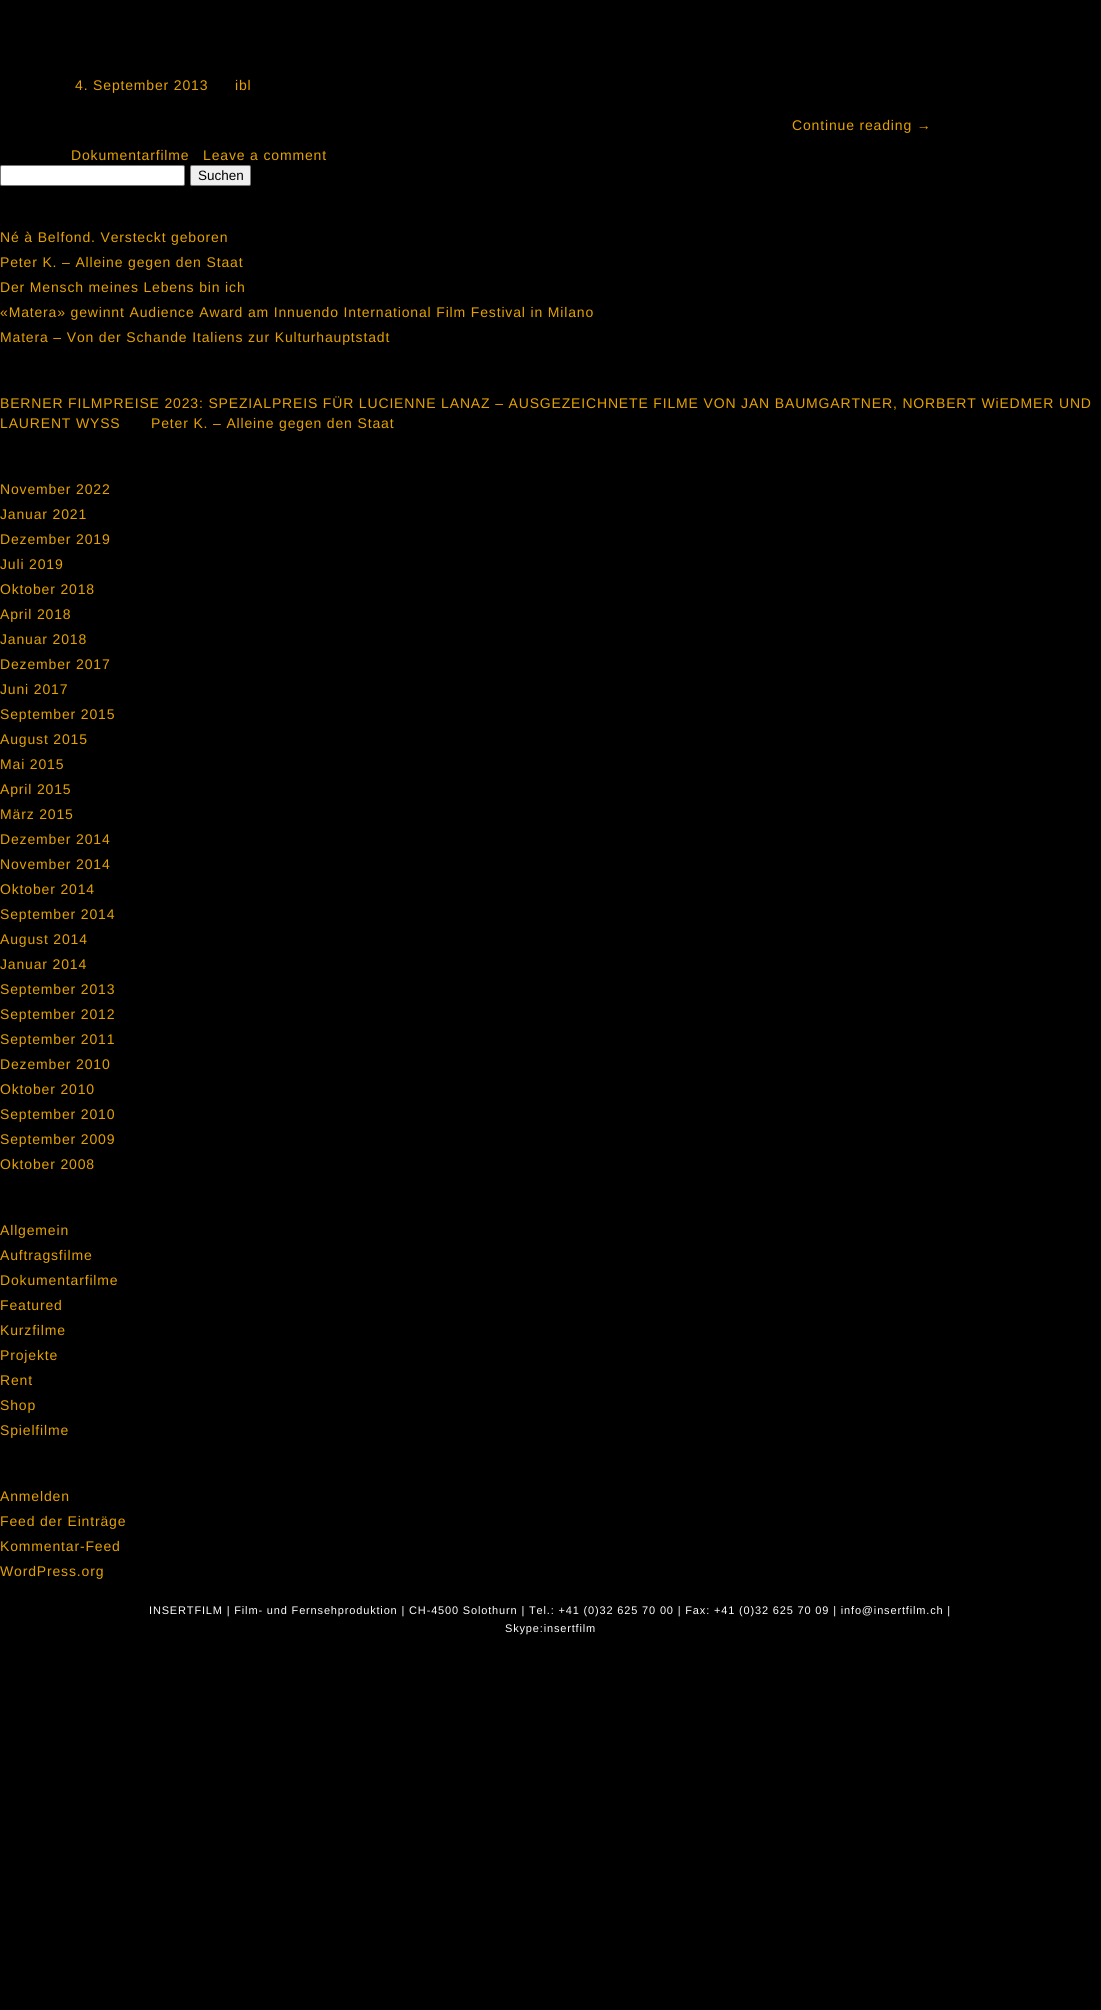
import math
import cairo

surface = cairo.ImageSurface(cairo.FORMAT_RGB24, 1101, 2010)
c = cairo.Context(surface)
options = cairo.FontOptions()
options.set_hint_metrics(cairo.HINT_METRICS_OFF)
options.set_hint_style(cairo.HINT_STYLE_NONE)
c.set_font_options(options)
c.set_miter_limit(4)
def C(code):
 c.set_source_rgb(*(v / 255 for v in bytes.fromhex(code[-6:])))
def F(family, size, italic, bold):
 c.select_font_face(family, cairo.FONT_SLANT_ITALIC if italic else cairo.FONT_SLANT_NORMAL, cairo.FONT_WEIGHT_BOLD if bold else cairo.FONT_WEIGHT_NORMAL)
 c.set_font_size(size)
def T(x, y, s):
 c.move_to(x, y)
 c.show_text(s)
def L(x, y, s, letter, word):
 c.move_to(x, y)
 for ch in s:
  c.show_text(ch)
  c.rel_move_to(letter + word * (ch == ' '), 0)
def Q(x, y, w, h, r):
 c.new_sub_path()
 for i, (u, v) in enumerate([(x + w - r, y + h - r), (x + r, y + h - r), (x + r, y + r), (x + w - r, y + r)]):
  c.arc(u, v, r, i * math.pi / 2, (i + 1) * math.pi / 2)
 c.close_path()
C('000000')
c.paint()
F('Liberation Sans',14,0,0)
C('e5a200')
L(75,90,'4. September 2013',.84,0)
L(235,90,'ibl',.84,0)
L(792,130,'Continue reading →',.84,0)
L(71,160,'Dokumentarfilme',.84,0)
L(203,160,'Leave a comment',.84,0)
C('ffffff')
Q(.5,165.5,184,20,1.5)
c.fill_preserve()
C('767676')
c.set_line_width(1)
c.stroke()
C('efefef')
Q(190.5,165.5,60,20,1.5)
c.fill_preserve()
C('767676')
c.stroke()
F('Liberation Sans',13.5,0,0)
C('000000')
T(198,180,'Suchen')
F('Liberation Sans',14,0,0)
C('e5a200')
L(0,242,'Né à Belfond. Versteckt geboren',.84,0)
L(0,267,'Peter K. – Alleine gegen den Staat',.84,0)
L(0,292,'Der Mensch meines Lebens bin ich',.84,0)
L(0,317,'«Matera» gewinnt Audience Award am Innuendo International Film Festival in Milano',.84,0)
L(0,342,'Matera – Von der Schande Italiens zur Kulturhauptstadt',.84,0)
L(0,408,'BERNER FILMPREISE 2023: SPEZIALPREIS FÜR LUCIENNE LANAZ – AUSGEZEICHNETE FILME VON JAN BAUMGARTNER, NORBERT WiEDMER UND',.84,0)
L(0,428,'LAURENT WYSS',.84,0)
L(151,428,'Peter K. – Alleine gegen den Staat',.84,0)
L(0,494,'November 2022',.84,0)
L(0,519,'Januar 2021',.84,0)
L(0,544,'Dezember 2019',.84,0)
L(0,569,'Juli 2019',.84,0)
L(0,594,'Oktober 2018',.84,0)
L(0,619,'April 2018',.84,0)
L(0,644,'Januar 2018',.84,0)
L(0,669,'Dezember 2017',.84,0)
L(0,694,'Juni 2017',.84,0)
L(0,719,'September 2015',.84,0)
L(0,744,'August 2015',.84,0)
L(0,769,'Mai 2015',.84,0)
L(0,794,'April 2015',.84,0)
L(0,819,'März 2015',.84,0)
L(0,844,'Dezember 2014',.84,0)
L(0,869,'November 2014',.84,0)
L(0,894,'Oktober 2014',.84,0)
L(0,919,'September 2014',.84,0)
L(0,944,'August 2014',.84,0)
L(0,969,'Januar 2014',.84,0)
L(0,994,'September 2013',.84,0)
L(0,1019,'September 2012',.84,0)
L(0,1044,'September 2011',.84,0)
L(0,1069,'Dezember 2010',.84,0)
L(0,1094,'Oktober 2010',.84,0)
L(0,1119,'September 2010',.84,0)
L(0,1144,'September 2009',.84,0)
L(0,1169,'Oktober 2008',.84,0)
L(0,1235,'Allgemein',.84,0)
L(0,1260,'Auftragsfilme',.84,0)
L(0,1285,'Dokumentarfilme',.84,0)
L(0,1310,'Featured',.84,0)
L(0,1335,'Kurzfilme',.84,0)
L(0,1360,'Projekte',.84,0)
L(0,1385,'Rent',.84,0)
L(0,1410,'Shop',.84,0)
L(0,1435,'Spielfilme',.84,0)
L(0,1501,'Anmelden',.84,0)
L(0,1526,'Feed der Einträge',.84,0)
L(0,1551,'Kommentar-Feed',.84,0)
L(0,1576,'WordPress.org',.84,0)
F('Liberation Sans',11,0,0)
C('ffffff')
L(149,1614,'INSERTFILM | Film- und Fernsehproduktion | CH-4500 Solothurn | Tel.: +41 (0)32 625 70 00 | Fax: +41 (0)32 625 70 09 | info@insertfilm.ch |',.84,0)
L(505,1632,'Skype:insertfilm',.84,0)
surface.write_to_png('o.png')
